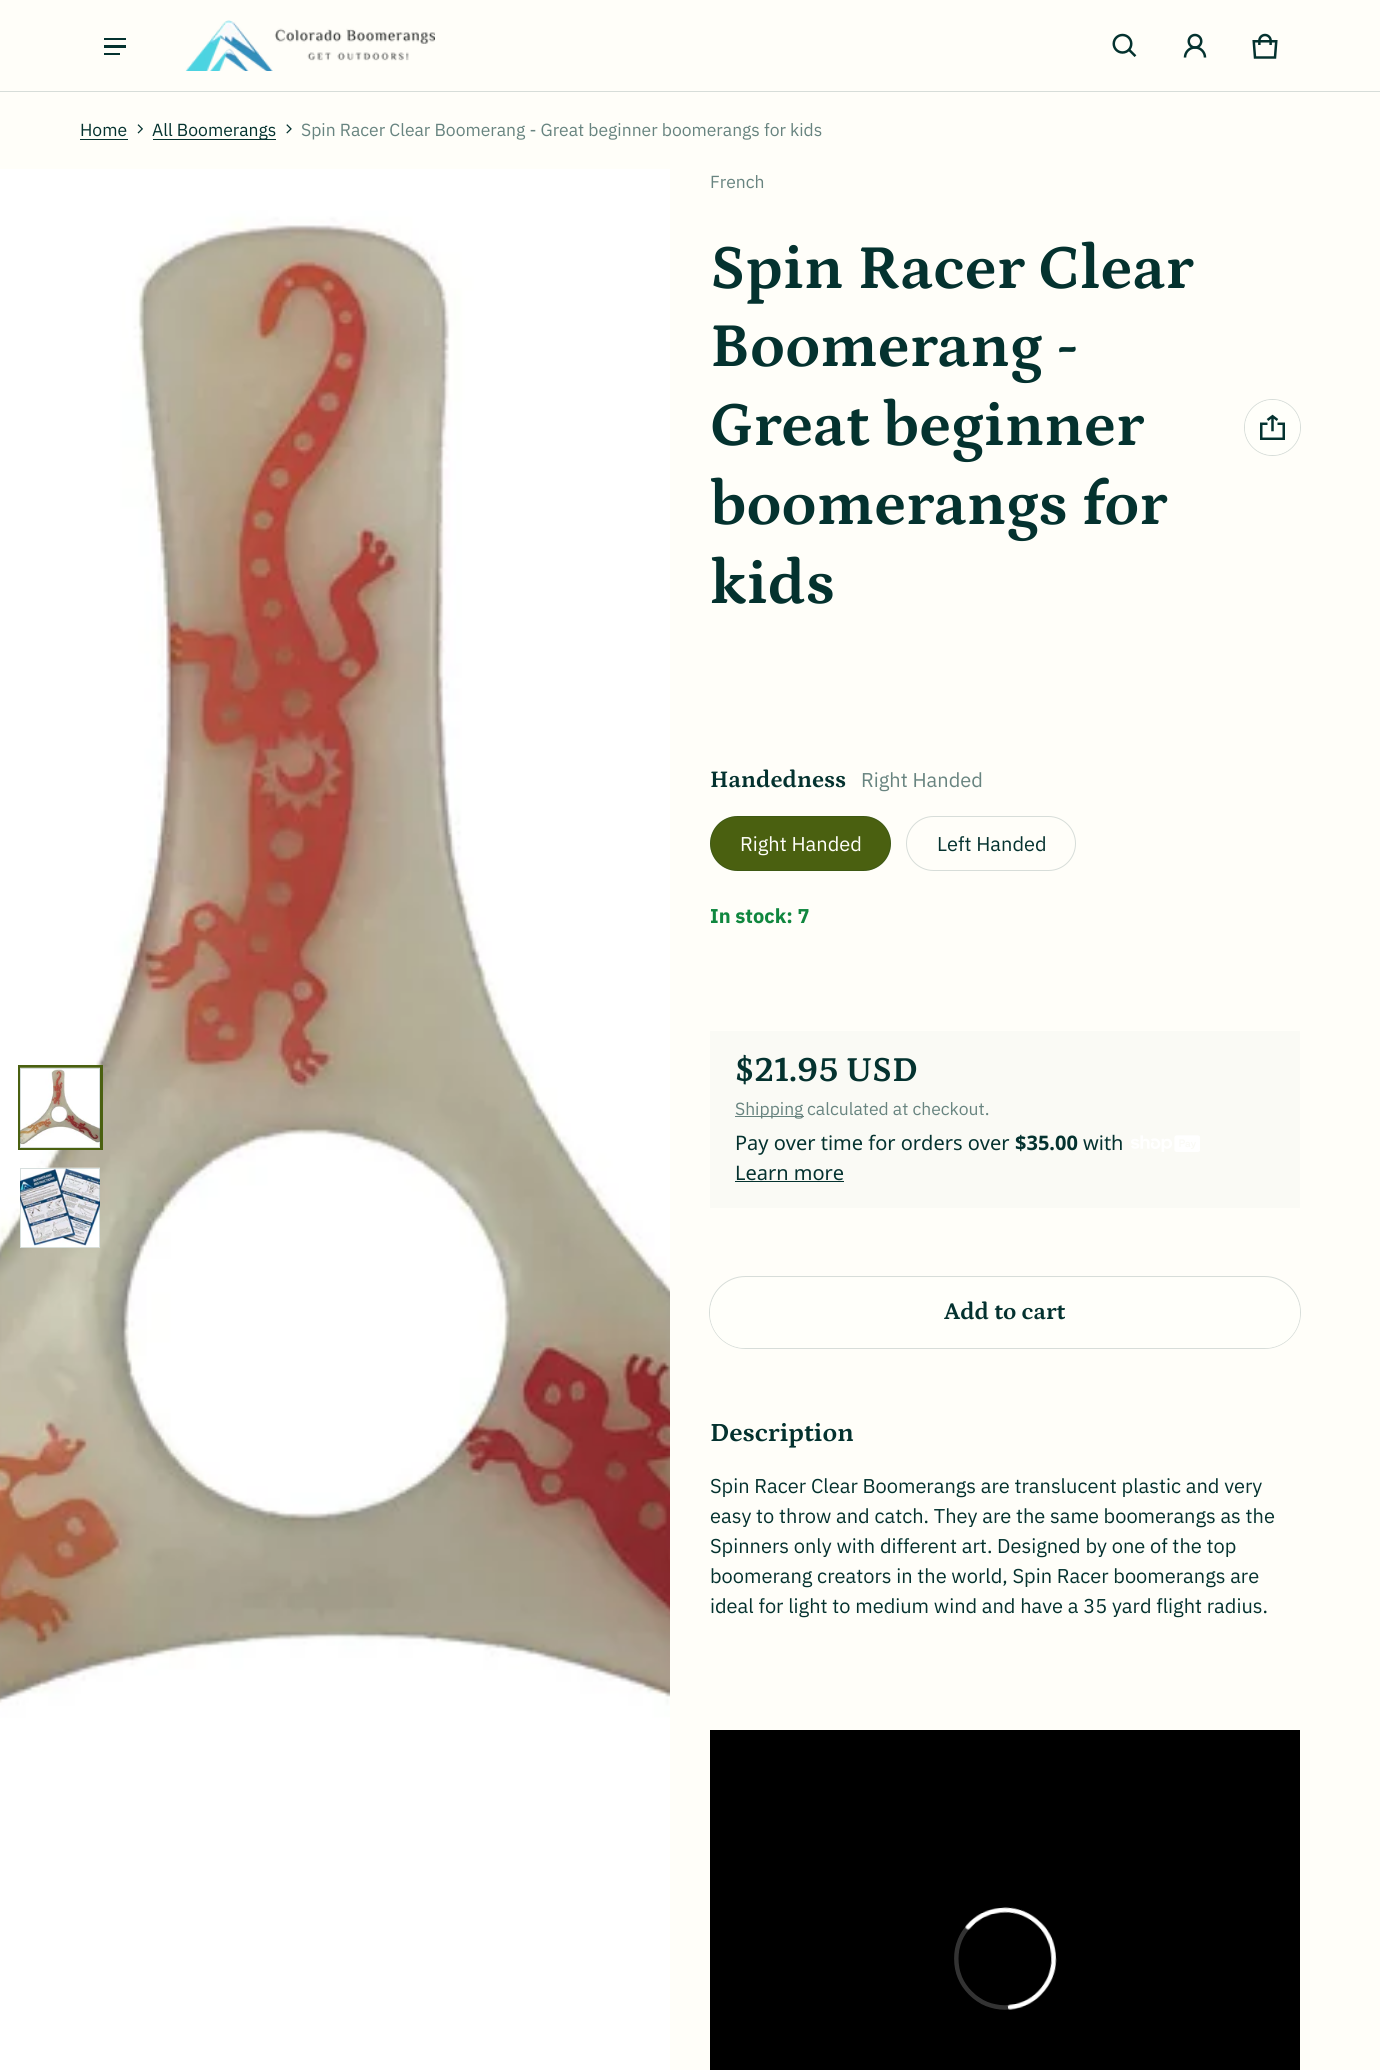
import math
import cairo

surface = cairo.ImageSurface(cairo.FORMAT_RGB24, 1380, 2070)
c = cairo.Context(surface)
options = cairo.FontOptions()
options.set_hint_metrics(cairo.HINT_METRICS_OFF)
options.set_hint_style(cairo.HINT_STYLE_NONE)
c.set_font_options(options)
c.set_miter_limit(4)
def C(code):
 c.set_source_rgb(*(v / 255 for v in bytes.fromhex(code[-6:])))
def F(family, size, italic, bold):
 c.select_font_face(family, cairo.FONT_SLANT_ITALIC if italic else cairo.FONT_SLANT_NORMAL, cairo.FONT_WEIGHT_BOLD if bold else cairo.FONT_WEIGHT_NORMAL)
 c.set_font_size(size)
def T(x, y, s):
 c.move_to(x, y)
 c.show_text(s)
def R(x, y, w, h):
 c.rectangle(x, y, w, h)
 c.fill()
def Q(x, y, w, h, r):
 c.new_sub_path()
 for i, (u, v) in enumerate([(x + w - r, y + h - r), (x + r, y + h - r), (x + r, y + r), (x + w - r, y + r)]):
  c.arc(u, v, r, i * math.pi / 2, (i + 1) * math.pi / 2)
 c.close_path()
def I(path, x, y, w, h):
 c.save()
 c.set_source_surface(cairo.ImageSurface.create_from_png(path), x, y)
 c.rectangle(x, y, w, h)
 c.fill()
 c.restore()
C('fffef9')
c.paint()
C('d7ddd9')
R(0,91,1380,1)
C('04322f')
R(104,38,22,2)
R(104,45,22,3)
R(104,53,16,2)
I('1.png',185,20,250,51)
I('2.png',1112,33,25,24)
I('3.png',1183,33,24,25)
I('4.png',1252,33,26,26)
F('IBM Plex Sans',17.5,0,0)
T(80,136,'Home')
R(80,139,48,1)
I('5.png',137,124,6,10)
R(153,139,123,1)
T(152,136,'All Boomerangs')
I('6.png',286,124,6,10)
C('688480')
T(301,136,'Spin Racer Clear Boomerang - Great beginner boomerangs for kids')
I('7.png',0,169,670,1901)
c.rectangle(19.5,1066.5,82,82)
C('4a6010')
c.set_line_width(3)
c.stroke()
C('fffef9')
R(20,1147,80,1)
I('8.png',20,1067,80,80)
c.rectangle(20.5,1068.5,79,79)
c.set_source_rgba(0.016,0.196,0.184,0.16)
c.set_line_width(1)
c.stroke()
C('fffef9')
R(20,1247,80,1)
I('9.png',20,1167,80,80)
c.rectangle(20.5,1168.5,79,79)
c.set_source_rgba(0.016,0.196,0.184,0.16)
c.stroke()
C('688480')
T(710,188,'French')
F('Petrona',63.25,0,1)
C('04322f')
T(710,288,'Spin Racer Clear')
T(710,366,'Boomerang -')
T(710,445,'Great beginner')
T(710,524,'boomerangs for')
T(710,603,'kids')
c.new_path()
c.arc(1272.5,427.5,28,0,2 * math.pi)
C('d7ddd9')
c.stroke()
C('fffffa')
c.arc(1272.5,427.5,27.5,0,2 * math.pi)
c.fill()
I('10.png',1260,414,25,26)
F('Petrona',24,0,1)
C('04322f')
T(710,787,'Handedness')
F('IBM Plex Sans',20,0,0)
C('688480')
T(861,787,'Right Handed')
C('4a6010')
Q(710,816,181,55,27.5)
c.fill()
Q(710.5,816.5,180,54,27)
c.set_source_rgba(0.016,0.196,0.184,0.16)
c.stroke()
C('fffffa')
T(740,851,'Right Handed')
Q(906.5,816.5,169,54,27)
C('d7ddd9')
c.stroke()
C('04322f')
T(937,851,'Left Handed')
F('IBM Plex Sans',20,0,1)
C('10873f')
T(710,923,'In stock: 7')
C('fafaf5')
R(710,1031,590,177)
F('Petrona',35.5,0,1)
C('04322f')
T(735,1081,'$21.95 USD')
C('66827e')
R(735,1116,69,1)
F('IBM Plex Sans',17.5,0,0)
C('688480')
T(735,1115,'Shipping')
T(807,1115,'calculated at checkout.')
F('Noto Sans',20,0,0)
C('04322f')
T(735,1150,'Pay over time for orders over')
F('Noto Sans',20,0,1)
T(1015,1150,'$35.00')
F('Noto Sans',20,0,0)
T(1083,1150,'with')
I('11.png',1131,1135,69,17)
T(735,1180,'Learn more')
R(735,1181,109,1)
Q(709.5,1276.5,591,72,36)
C('d7ddd9')
c.stroke()
C('fffffa')
Q(710,1278,590,70,35)
c.fill()
F('Petrona',24,0,1)
C('04322f')
T(944,1319,'Add to cart')
F('Petrona',26.5,0,1)
T(710,1441,'Description')
F('IBM Plex Sans',20,0,0)
T(710,1493,'Spin Racer Clear Boomerangs are translucent plastic and very')
T(710,1523,'easy to throw and catch. They are the same boomerangs as the')
T(710,1553,'Spinners only with different art. Designed by one of the top')
T(710,1583,'boomerang creators in the world, Spin Racer boomerangs are')
T(710,1613,'ideal for light to medium wind and have a 35 yard flight radius.')
I('12.png',710,1730,590,340)
surface.write_to_png('o.png')
